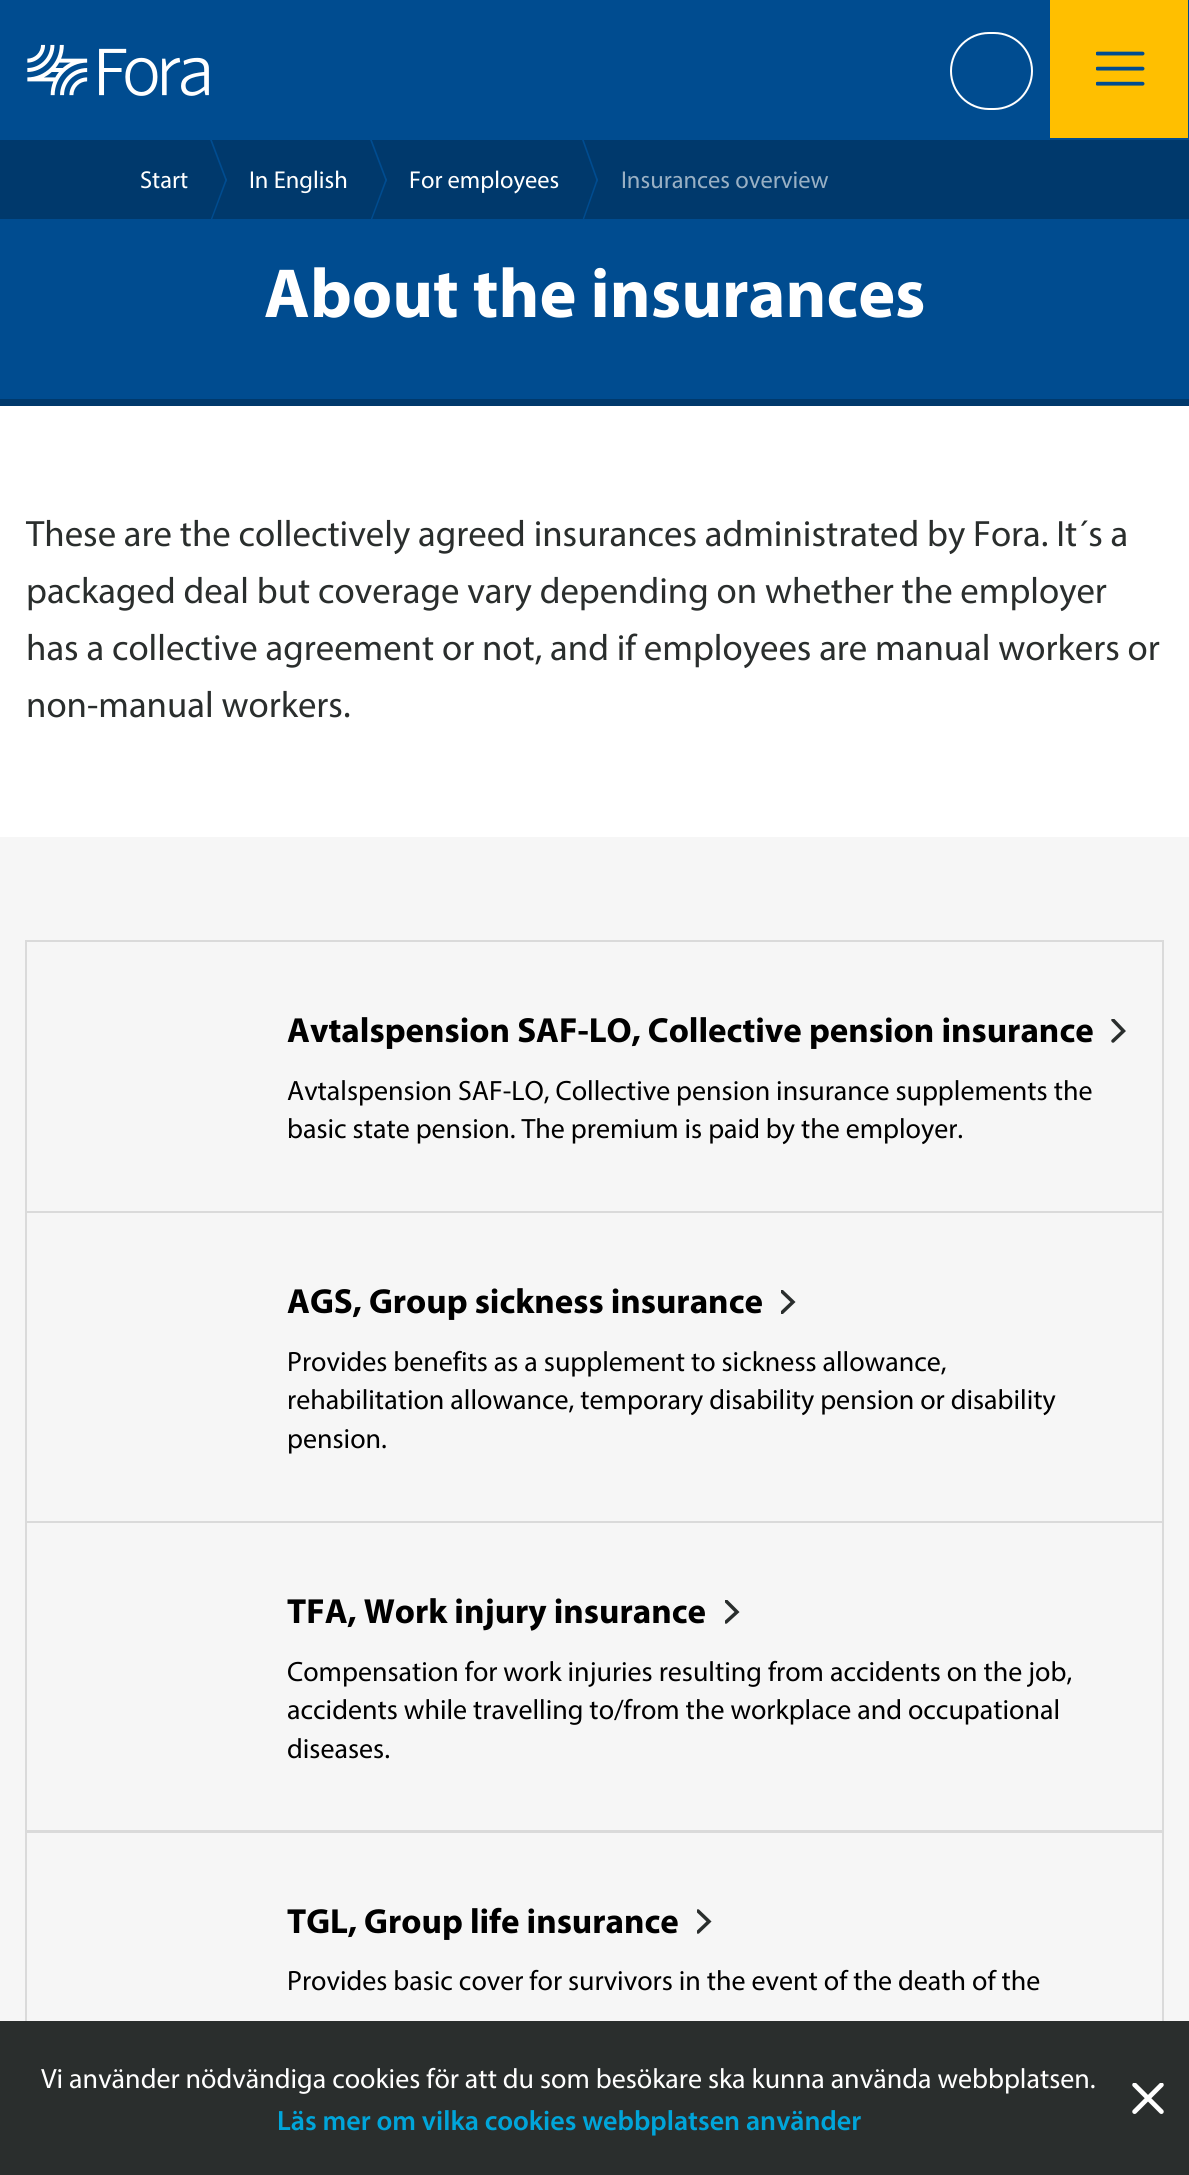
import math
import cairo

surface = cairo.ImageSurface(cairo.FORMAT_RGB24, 1189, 2175)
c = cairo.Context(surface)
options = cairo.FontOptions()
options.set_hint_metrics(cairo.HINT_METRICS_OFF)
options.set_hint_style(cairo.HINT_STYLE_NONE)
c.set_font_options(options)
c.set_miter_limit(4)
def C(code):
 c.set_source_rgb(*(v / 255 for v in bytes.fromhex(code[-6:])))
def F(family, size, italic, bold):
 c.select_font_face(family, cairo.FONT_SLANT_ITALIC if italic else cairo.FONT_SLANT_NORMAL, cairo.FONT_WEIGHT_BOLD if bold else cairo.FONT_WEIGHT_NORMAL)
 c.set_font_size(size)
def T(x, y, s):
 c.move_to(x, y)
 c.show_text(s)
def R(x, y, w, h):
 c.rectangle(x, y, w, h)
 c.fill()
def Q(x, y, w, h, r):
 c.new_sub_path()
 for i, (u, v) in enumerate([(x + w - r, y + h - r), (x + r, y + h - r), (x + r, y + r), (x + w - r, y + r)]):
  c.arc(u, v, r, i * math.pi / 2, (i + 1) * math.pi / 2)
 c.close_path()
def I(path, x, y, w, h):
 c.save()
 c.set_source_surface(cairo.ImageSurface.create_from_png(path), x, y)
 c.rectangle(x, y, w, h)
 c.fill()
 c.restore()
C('ffffff')
c.paint()
C('004c90')
R(0,0,1189,140)
I('1.png',27,44,182,52)
Q(951,33,81,76,38)
C('ffffff')
c.stroke()
C('ffbf00')
R(1050,0,138,138)
I('2.png',1096,51,49,35)
C('00396c')
R(0,140,1189,79)
F('Myriad',24.5,0,0)
C('ffffff')
T(140,188,'Start')
C('004c90')
c.new_path()
c.move_to(210,135)
c.line_to(227,180)
c.line_to(226,182)
c.line_to(209,137)
c.close_path()
c.fill()
c.save()
c.rectangle(0,140,845,79)
c.clip()
c.new_path()
c.move_to(226,178)
c.line_to(227,180)
c.line_to(210,225)
c.line_to(209,224)
c.close_path()
c.fill()
c.restore()
C('ffffff')
T(249,188,'In English')
C('004c90')
c.new_path()
c.move_to(370,135)
c.line_to(387,180)
c.line_to(386,182)
c.line_to(369,137)
c.close_path()
c.fill()
c.save()
c.rectangle(0,140,845,79)
c.clip()
c.new_path()
c.move_to(386,178)
c.line_to(387,180)
c.line_to(370,225)
c.line_to(369,224)
c.close_path()
c.fill()
c.restore()
C('ffffff')
T(409,188,'For employees')
C('004c90')
c.new_path()
c.move_to(582,135)
c.line_to(598,180)
c.line_to(597,182)
c.line_to(581,137)
c.close_path()
c.fill()
c.save()
c.rectangle(0,140,845,79)
c.clip()
c.new_path()
c.move_to(597,178)
c.line_to(598,180)
c.line_to(582,225)
c.line_to(581,224)
c.close_path()
c.fill()
c.restore()
C('99b0c4')
T(621,188,'Insurances overview')
C('00396c')
R(0,399,1189,7)
C('004c90')
R(0,219,1189,180)
F('Myriad',70,0,1)
C('ffffff')
T(264,317,'About the insurances')
F('Myriad',36.75,0,0)
C('2a2e2d')
T(26,546,'These are the collectively agreed insurances administrated by Fora. It´s a')
T(26,603,'packaged deal but coverage vary depending on whether the employer')
T(26,660,'has a collective agreement or not, and if employees are manual workers or')
T(26,717,'non-manual workers.')
C('f6f6f6')
R(0,837,1189,1184)
c.rectangle(26,941,1137,271)
C('dadada')
c.stroke()
F('Myriad',35,0,1)
C('000000')
T(287,1042,'Avtalspension SAF-LO, Collective pension insurance')
c.save()
c.rectangle(1111,1019,16,24)
c.clip()
c.new_path()
c.move_to(1113,1041)
c.line_to(1123.5,1031)
c.line_to(1113,1020)
C('2a2e2d')
c.set_line_width(3.5)
c.set_line_cap(cairo.LINE_CAP_ROUND)
c.stroke()
c.restore()
F('Myriad',28,0,0)
T(287,1100,'Avtalspension SAF-LO, Collective pension insurance supplements the')
T(287,1138,'basic state pension. The premium is paid by the employer.')
c.rectangle(26,1212,1137,310)
C('dadada')
c.stroke()
F('Myriad',35,0,1)
C('000000')
T(287,1313,'AGS, Group sickness insurance')
c.save()
c.rectangle(781,1290,15,24)
c.clip()
c.new_path()
c.move_to(782,1312.5)
c.line_to(793,1302)
c.line_to(782,1291.5)
C('2a2e2d')
c.set_line_width(3.5)
c.set_line_cap(cairo.LINE_CAP_ROUND)
c.stroke()
c.restore()
F('Myriad',28,0,0)
T(287,1371,'Provides benefits as a supplement to sickness allowance,')
T(287,1409,'rehabilitation allowance, temporary disability pension or disability')
T(287,1448,'pension.')
c.rectangle(26,1522,1137,309)
C('dadada')
c.stroke()
F('Myriad',35,0,1)
C('000000')
T(287,1623,'TFA, Work injury insurance')
c.save()
c.rectangle(725,1600,15,24)
c.clip()
c.new_path()
c.move_to(726,1622)
c.line_to(737,1612)
c.line_to(726,1601)
C('2a2e2d')
c.set_line_width(3.5)
c.set_line_cap(cairo.LINE_CAP_ROUND)
c.stroke()
c.restore()
F('Myriad',28,0,0)
T(287,1681,'Compensation for work injuries resulting from accidents on the job,')
T(287,1719,'accidents while travelling to/from the workplace and occupational')
T(287,1758,'diseases.')
c.rectangle(26,1832,1137,271)
C('dadada')
c.stroke()
F('Myriad',35,0,1)
C('000000')
T(287,1933,'TGL, Group life insurance')
c.save()
c.rectangle(697,1909,15,25)
c.clip()
c.new_path()
c.move_to(698,1932)
c.line_to(709,1921.5)
c.line_to(698,1911)
C('2a2e2d')
c.set_line_width(3.5)
c.set_line_cap(cairo.LINE_CAP_ROUND)
c.stroke()
c.restore()
F('Myriad',28,0,0)
T(287,1990,'Provides basic cover for survivors in the event of the death of the')
C('2a2e2d')
R(0,2021,1189,154)
C('ffffff')
T(41,2088,'Vi använder nödvändiga cookies för att du som besökare ska kunna använda webbplatsen.')
F('Myriad SemiBold',28,0,0)
C('00a5da')
T(277,2130,'Läs mer om vilka cookies webbplatsen använder')
I('3.png',1132,2083,32,31)
surface.write_to_png('o.png')
